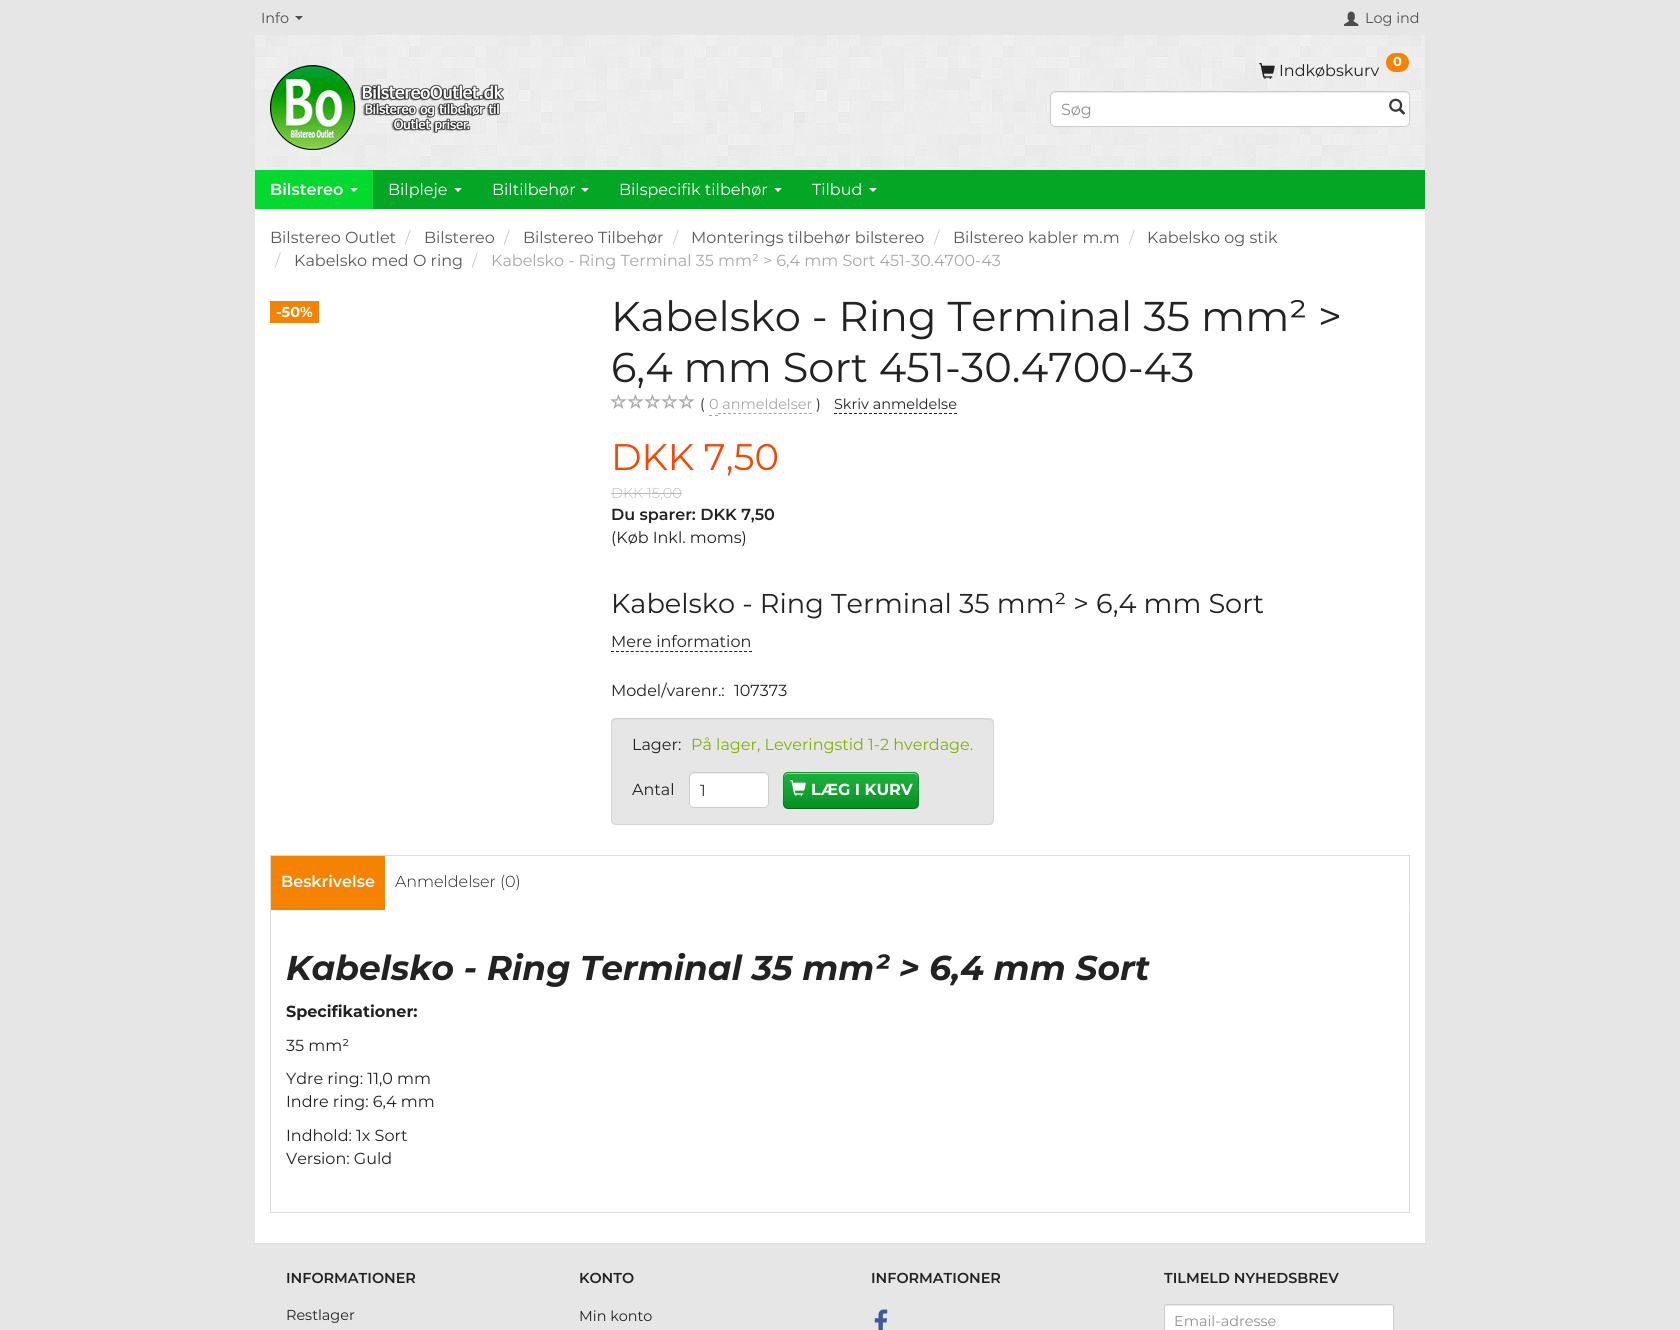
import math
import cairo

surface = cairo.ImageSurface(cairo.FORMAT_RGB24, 1680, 1330)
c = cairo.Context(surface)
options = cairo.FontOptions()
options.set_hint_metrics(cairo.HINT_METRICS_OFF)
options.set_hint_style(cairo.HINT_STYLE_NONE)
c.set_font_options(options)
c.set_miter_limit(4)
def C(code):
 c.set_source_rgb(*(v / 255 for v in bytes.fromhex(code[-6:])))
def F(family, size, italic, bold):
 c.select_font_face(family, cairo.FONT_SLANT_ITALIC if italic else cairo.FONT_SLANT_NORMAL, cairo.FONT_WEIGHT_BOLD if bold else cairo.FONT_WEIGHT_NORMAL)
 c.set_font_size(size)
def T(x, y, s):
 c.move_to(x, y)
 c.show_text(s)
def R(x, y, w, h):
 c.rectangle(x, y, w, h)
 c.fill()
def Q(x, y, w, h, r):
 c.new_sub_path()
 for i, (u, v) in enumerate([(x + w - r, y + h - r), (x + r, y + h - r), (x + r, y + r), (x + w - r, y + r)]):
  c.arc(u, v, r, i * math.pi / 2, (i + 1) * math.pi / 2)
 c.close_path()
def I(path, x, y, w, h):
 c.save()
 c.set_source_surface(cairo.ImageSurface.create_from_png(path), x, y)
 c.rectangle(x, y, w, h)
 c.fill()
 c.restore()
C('e6e6e6')
c.paint()
F('Montserrat',14.4,0,0)
C('4e4e4e')
T(261,23,'Info')
c.new_path()
c.move_to(295,16)
c.line_to(303,16)
c.line_to(299,20)
c.close_path()
c.fill()
I('1.png',1344,11,15,15)
T(1365,23,'Log ind')
I('2.png',255,35,1170,135)
I('3.png',270,65,234,85)
C('f58201')
Q(1386,53,23,19,9.5)
c.fill()
F('Montserrat',13,0,1)
C('ffffff')
T(1393,66,'0')
I('4.png',1259,63,16,16)
F('Montserrat',16,0,0)
C('222222')
T(1279,76,'Indkøbskurv')
C('ffffff')
Q(1050,91,360,36,5)
c.fill()
C('ececec')
c.new_path()
c.move_to(1055,93)
c.line_to(1405,93)
c.curve_to(1407,93,1409,95,1409,97)
c.line_to(1408,94)
c.line_to(1406,92)
c.line_to(1055,92)
c.curve_to(1052,92,1051,94,1051,97)
c.curve_to(1051,95,1053,93,1055,93)
c.close_path()
c.fill()
Q(1050.5,91.5,359,35,4.5)
C('cccccc')
c.set_line_width(1)
c.stroke()
C('919191')
T(1061,115,'Søg')
I('5.png',1389,98,17,17)
C('03a725')
R(373,170,1052,39)
C('04d930')
R(255,170,118,39)
F('Montserrat SemiBold',16,0,0)
C('ffffff')
T(270,195,'Bilstereo')
c.new_path()
c.move_to(350,188)
c.line_to(358,188)
c.line_to(354,192)
c.close_path()
c.fill()
F('Montserrat',16,0,0)
T(388,195,'Bilpleje')
c.new_path()
c.move_to(454,188)
c.line_to(462,188)
c.line_to(458,192)
c.close_path()
c.fill()
T(492,195,'Biltilbehør')
c.new_path()
c.move_to(581,188)
c.line_to(589,188)
c.line_to(585,192)
c.close_path()
c.fill()
T(619,195,'Bilspecifik tilbehør')
c.new_path()
c.move_to(774,188)
c.line_to(782,188)
c.line_to(778,192)
c.close_path()
c.fill()
T(812,195,'Tilbud')
c.new_path()
c.move_to(869,188)
c.line_to(877,188)
c.line_to(873,192)
c.close_path()
c.fill()
R(255,209,1170,1034)
C('595959')
T(270,243,'Bilstereo Outlet')
C('cccccc')
T(405,243,'/')
C('595959')
T(424,243,'Bilstereo')
C('cccccc')
T(504,243,'/')
C('595959')
T(523,243,'Bilstereo Tilbehør')
C('cccccc')
T(673,243,'/')
C('595959')
T(691,243,'Monterings tilbehør bilstereo')
C('cccccc')
T(934,243,'/')
C('595959')
T(953,243,'Bilstereo kabler m.m')
C('cccccc')
T(1129,243,'/')
C('595959')
T(1147,243,'Kabelsko og stik')
C('cccccc')
T(275,266,'/')
C('595959')
T(294,266,'Kabelsko med O ring')
C('cccccc')
T(472,266,'/')
C('a7a7a7')
T(491,266,'Kabelsko - Ring Terminal 35 mm² > 6,4 mm Sort 451-30.4700-43')
C('f58201')
R(270,301,49,22)
F('Montserrat',14.4,0,1)
C('ffffff')
T(276,317,'-50%')
F('Montserrat',41.6,0,0)
C('222222')
T(611,331,'Kabelsko - Ring Terminal 35 mm² >')
T(611,382,'6,4 mm Sort 451-30.4700-43')
I('6.png',610,394,17,15)
I('6.png',627,394,17,15)
I('6.png',644,394,17,15)
I('6.png',661,394,17,15)
I('6.png',678,394,17,15)
F('Montserrat',14.4,0,0)
T(700,409,'(')
c.new_path()
c.move_to(709,415.5)
c.line_to(712,415.5)
c.move_to(715,415.5)
c.line_to(718,415.5)
C('a7a7a7')
c.stroke()
c.new_path()
c.move_to(718,413.5)
c.line_to(812,413.5)
c.set_dash([3,2.06])
c.stroke()
T(709,409,'0 anmeldelser')
C('222222')
T(816,409,')')
T(834,409,'Skriv anmeldelse')
c.new_path()
c.move_to(834,413.5)
c.line_to(957,413.5)
c.set_dash([3,2])
c.stroke()
F('Montserrat',37,0,0)
C('f64705')
T(611,470,'DKK 7,50')
F('Montserrat Light',14.4,0,0)
C('bbbbbb')
T(611,498,'DKK 15,00')
R(611,493,71,1)
F('Montserrat SemiBold',16,0,0)
C('222222')
T(611,520,'Du sparer: DKK 7,50')
F('Montserrat',16,0,0)
T(611,543,'(Køb Inkl. moms)')
F('Montserrat',27.2,0,0)
T(611,613,'Kabelsko - Ring Terminal 35 mm² > 6,4 mm Sort')
F('Montserrat',16,0,0)
T(611,647,'Mere information')
c.new_path()
c.move_to(611,651.5)
c.line_to(752,651.5)
c.set_dash([3,1.93])
c.stroke()
T(611,696,'Model/varenr.:')
T(734,696,'107373')
C('e6e6e6')
Q(611,718,383,107,5)
c.fill()
C('dbdbdb')
c.new_path()
c.move_to(616,720)
c.line_to(989,720)
c.curve_to(991,720,993,722,993,724)
c.curve_to(993,721,992,719,989,719)
c.line_to(616,719)
c.curve_to(613,719,612,721,612,724)
c.curve_to(612,722,614,720,616,720)
c.close_path()
c.fill()
Q(611.5,718.5,382,106,4.5)
C('d4d4d4')
c.set_dash([])
c.stroke()
C('222222')
T(632,750,'Lager:')
C('81b106')
T(691,750,'På lager, Leveringstid 1-2 hverdage.')
C('222222')
T(632,795,'Antal')
C('ffffff')
Q(689,772,80,36,5)
c.fill()
C('ececec')
c.new_path()
c.move_to(694,774)
c.line_to(764,774)
c.curve_to(766,774,768,776,768,778)
c.curve_to(768,770,757,773,752,773)
c.line_to(706,773)
c.curve_to(701,773,690,770,690,778)
c.curve_to(690,776,692,774,694,774)
c.close_path()
c.fill()
Q(689.5,772.5,79,35,4.5)
C('cccccc')
c.stroke()
C('383838')
T(700,796,'1')
C('03a725')
Q(783,772,136,37,5)
c.fill()
gradient = cairo.LinearGradient(851,772,851,809)
gradient.add_color_stop_rgba(0,1,1,1,.1)
gradient.add_color_stop_rgba(1,0,0,0,.15)
c.set_source(gradient)
Q(783,772,136,37,5)
c.fill()
C('8dd79d')
c.new_path()
c.move_to(788,774)
c.line_to(914,774)
c.curve_to(916,774,918,776,918,778)
c.line_to(918,777)
c.curve_to(918,775,916,773,914,773)
c.line_to(788,773)
c.curve_to(786,773,784,775,784,777)
c.line_to(784,778)
c.curve_to(784,776,786,774,788,774)
c.close_path()
c.fill()
c.new_path()
c.move_to(917,807)
c.line_to(914,808.5)
c.line_to(787.5,808.5)
c.line_to(785,807)
c.set_source_rgba(0,0,0,0.25)
c.stroke()
c.new_path()
c.move_to(785,807)
c.curve_to(782,804.5,783.5,798,783.5,795)
c.curve_to(783.5,767.5,779.5,772.5,809,772.5)
c.line_to(893,772.5)
c.curve_to(922.5,772.5,918.5,767.5,918.5,795)
c.curve_to(918.5,798,920,804.5,917,807)
c.set_source_rgba(0,0,0,0.15)
c.stroke()
I('7.png',790,780,16,16)
F('Montserrat',16,0,1)
C('ffffff')
T(811,795,'LÆG I KURV')
C('dadcd7')
R(270,855,1140,1)
c.new_path()
c.move_to(1410,855)
c.line_to(1410,910)
c.line_to(1409,909)
c.line_to(1409,856)
c.close_path()
c.fill()
c.new_path()
c.move_to(270,910)
c.line_to(270,855)
c.line_to(271,856)
c.line_to(271,909)
c.close_path()
c.fill()
C('f58201')
R(271,856,114,54)
F('Montserrat SemiBold',16,0,0)
C('ffffff')
T(281,887,'Beskrivelse')
F('Montserrat Light',16,0,0)
C('222222')
T(395,887,'Anmeldelser (0)')
C('dadcd7')
R(1409,910,1,303)
R(270,1212,1140,1)
R(270,910,1,303)
F('Montserrat',34.4,1,1)
C('222222')
T(286,980,'Kabelsko - Ring Terminal 35 mm² > 6,4 mm Sort')
F('Montserrat',16,0,1)
T(286,1017,'Specifikationer:')
F('Montserrat',16,0,0)
T(286,1051,'35 mm²')
T(286,1084,'Ydre ring: 11,0 mm')
T(286,1107,'Indre ring: 6,4 mm')
T(286,1141,'Indhold: 1x Sort')
T(286,1164,'Version: Guld')
C('dadcd7')
R(255,1243,1170,1)
F('Montserrat SemiBold',14.4,0,0)
C('222222')
T(286,1283,'INFORMATIONER')
F('Montserrat',14.4,0,0)
T(286,1320,'Restlager')
F('Montserrat SemiBold',14.4,0,0)
T(579,1283,'KONTO')
F('Montserrat',14.4,0,0)
T(579,1321,'Min konto')
F('Montserrat SemiBold',14.4,0,0)
T(871,1283,'INFORMATIONER')
I('8.png',874,1309,14,21)
T(1164,1283,'TILMELD NYHEDSBREV')
C('ffffff')
Q(1164,1304,230,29,3)
c.fill()
C('ececec')
c.new_path()
c.move_to(1167,1306)
c.line_to(1391,1306)
c.curve_to(1392,1306,1393,1307,1393,1308)
c.curve_to(1393,1307,1393,1305,1391,1305)
c.line_to(1167,1305)
c.curve_to(1165,1305,1165,1307,1165,1308)
c.curve_to(1165,1307,1166,1306,1167,1306)
c.close_path()
c.fill()
Q(1164.5,1304.5,229,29,2.5)
C('cccccc')
c.stroke()
F('Montserrat',14.4,0,0)
C('919191')
T(1174,1326,'Email-adresse')
surface.write_to_png('o.png')
